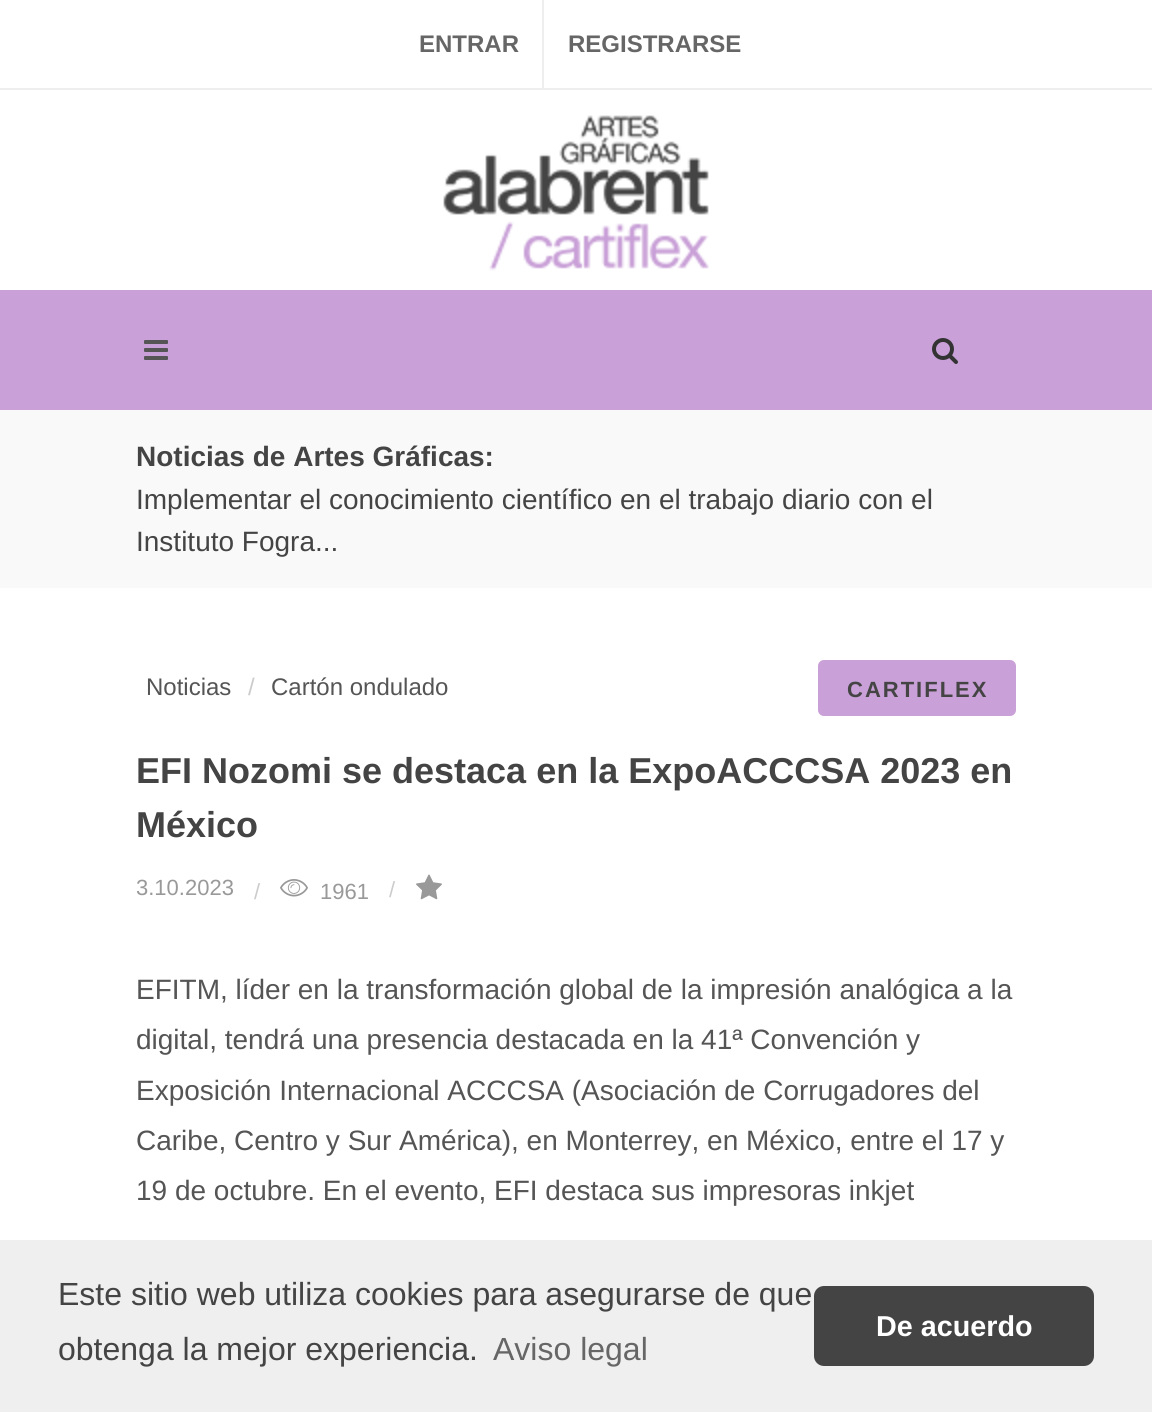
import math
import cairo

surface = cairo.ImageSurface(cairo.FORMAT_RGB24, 1152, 1412)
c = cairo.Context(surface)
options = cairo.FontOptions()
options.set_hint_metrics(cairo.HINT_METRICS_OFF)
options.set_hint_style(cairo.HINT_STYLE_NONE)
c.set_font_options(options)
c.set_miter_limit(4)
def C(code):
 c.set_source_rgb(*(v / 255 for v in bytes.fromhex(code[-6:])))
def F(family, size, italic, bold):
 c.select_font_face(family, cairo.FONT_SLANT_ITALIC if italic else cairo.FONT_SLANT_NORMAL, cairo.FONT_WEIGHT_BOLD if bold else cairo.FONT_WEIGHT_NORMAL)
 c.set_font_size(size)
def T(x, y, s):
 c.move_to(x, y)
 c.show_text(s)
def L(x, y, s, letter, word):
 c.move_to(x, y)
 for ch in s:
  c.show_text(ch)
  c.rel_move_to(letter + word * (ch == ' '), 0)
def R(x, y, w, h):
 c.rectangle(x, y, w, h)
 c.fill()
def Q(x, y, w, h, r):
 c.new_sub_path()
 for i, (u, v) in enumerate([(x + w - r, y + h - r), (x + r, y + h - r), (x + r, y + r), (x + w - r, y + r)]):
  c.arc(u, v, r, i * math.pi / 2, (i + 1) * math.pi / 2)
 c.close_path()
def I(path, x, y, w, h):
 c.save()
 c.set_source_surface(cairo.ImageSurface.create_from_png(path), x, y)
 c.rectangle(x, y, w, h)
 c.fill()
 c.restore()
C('ffffff')
c.paint()
C('eeeeee')
R(0,88,1152,2)
F('Liberation Sans',24,0,1)
C('666666')
T(419,52,'ENTRAR')
C('eeeeee')
R(542,0,2,88)
C('666666')
T(568,52,'REGISTRARSE')
I('1.png',443,115,266,156)
C('c9a0d7')
R(0,290,1152,120)
I('2.png',144,340,24,20)
I('3.png',932,338,26,26)
C('f9f9f9')
R(0,410,1152,178)
F('Liberation Sans',28,0,1)
C('444444')
T(136,466,'Noticias de Artes Gráficas:')
F('Liberation Sans',28,0,0)
T(136,509,'Implementar el conocimiento científico en el trabajo diario con el')
T(136,551,'Instituto Fogra...')
F('Liberation Sans',24,0,0)
C('555555')
T(146,695,'Noticias')
C('cccccc')
T(248,695,'/')
C('555555')
T(271,695,'Cartón ondulado')
C('c9a0d7')
Q(818,660,198,56,6)
c.fill()
F('Liberation Sans',22,0,1)
C('444444')
L(847,697,'CARTIFLEX',2,0)
F('Liberation Sans',36,0,1)
T(136,783,'EFI Nozomi se destaca en la ExpoACCCSA 2023 en')
T(136,837,'México')
F('Liberation Sans',22,0,0)
C('999999')
T(136,895,'3.10.2023')
C('cccccc')
T(254,899,'/')
I('4.png',280,879,28,18)
C('999999')
T(320,899,'1961')
C('cccccc')
T(389,897,'/')
I('5.png',416,874,26,26)
F('Liberation Sans',28,0,0)
C('555555')
T(136,999,'EFITM, líder en la transformación global de la impresión analógica a la')
T(136,1049,'digital, tendrá una presencia destacada en la 41ª Convención y')
T(136,1100,'Exposición Internacional ACCCSA (Asociación de Corrugadores del')
T(136,1150,'Caribe, Centro y Sur América), en Monterrey, en México, entre el 17 y')
T(136,1200,'19 de octubre. En el evento, EFI destaca sus impresoras inkjet')
C('efefef')
R(0,1240,1152,172)
F('Liberation Sans',32,0,0)
C('444444')
T(58,1305,'Este sitio web utiliza cookies para asegurarse de que')
T(58,1360,'obtenga la mejor experiencia.')
C('666666')
T(493,1360,'Aviso legal')
C('444444')
Q(814,1286,280,80,10)
c.fill()
F('Liberation Sans',28.75,0,1)
C('ffffff')
T(876,1336,'De acuerdo')
surface.write_to_png('o.png')
